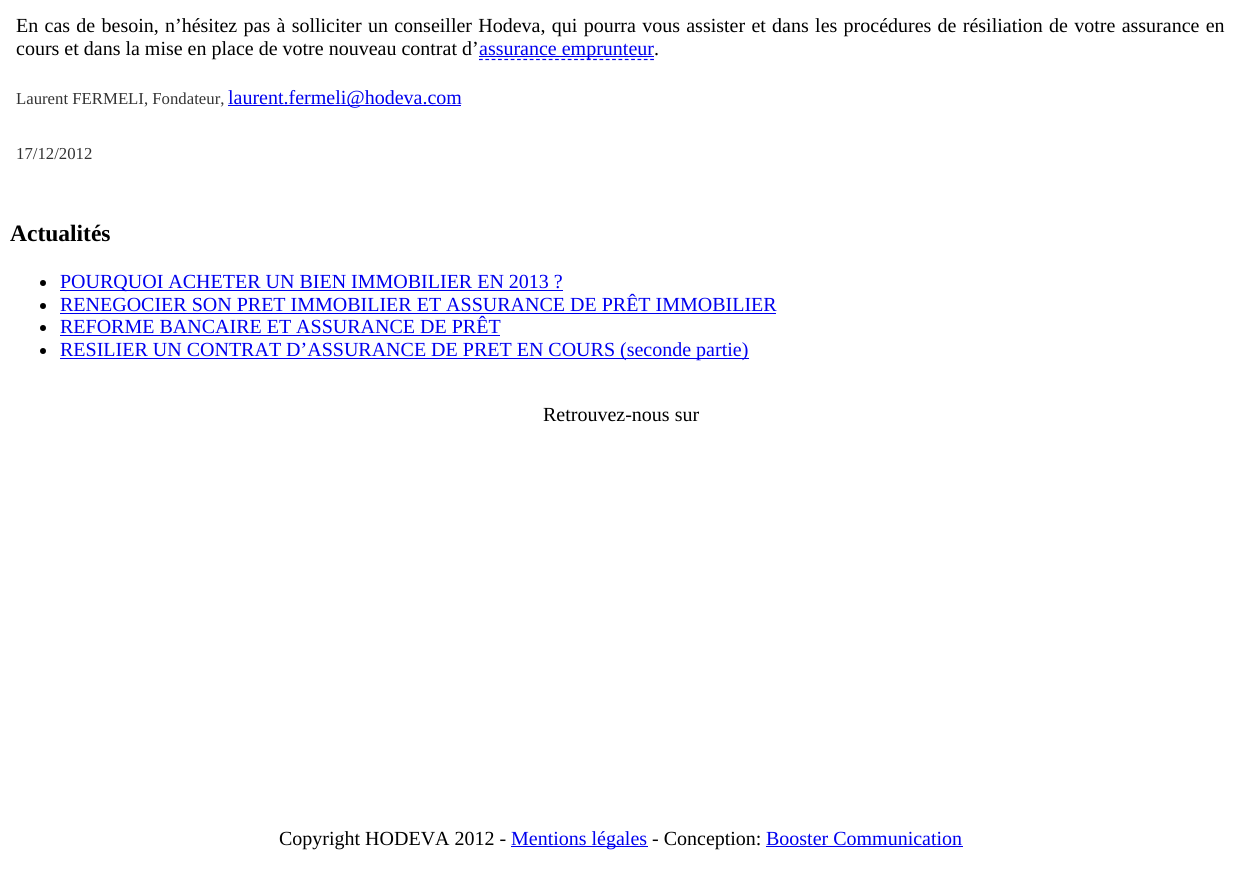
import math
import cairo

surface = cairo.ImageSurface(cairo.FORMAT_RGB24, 1241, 869)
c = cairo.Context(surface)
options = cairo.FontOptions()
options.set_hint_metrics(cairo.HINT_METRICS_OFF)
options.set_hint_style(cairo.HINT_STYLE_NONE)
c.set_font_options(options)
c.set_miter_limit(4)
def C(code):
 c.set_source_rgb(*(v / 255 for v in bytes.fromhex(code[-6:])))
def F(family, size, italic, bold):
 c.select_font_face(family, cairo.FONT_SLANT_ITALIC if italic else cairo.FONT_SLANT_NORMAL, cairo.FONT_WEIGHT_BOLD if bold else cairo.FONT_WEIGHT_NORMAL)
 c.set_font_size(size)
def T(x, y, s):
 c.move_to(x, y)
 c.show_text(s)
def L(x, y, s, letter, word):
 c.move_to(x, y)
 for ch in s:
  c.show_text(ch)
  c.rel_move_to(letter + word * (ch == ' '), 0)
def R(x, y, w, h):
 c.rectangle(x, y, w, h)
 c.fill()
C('ffffff')
c.paint()
F('Liberation Serif',20,0,0)
C('000000')
L(16,32,'En cas de besoin, n’hésitez pas à solliciter un conseiller Hodeva, qui pourra vous assister et dans les procédures de résiliation de votre assurance en',0,1.3)
T(16,55,'cours et dans la mise en place de votre nouveau contrat d’')
c.new_path()
c.move_to(479,59.5)
c.line_to(654,59.5)
C('0000ee')
c.set_line_width(1.2)
c.set_dash([3.75,2.59])
c.stroke()
R(479,56,175,1)
T(479,55,'assurance emprunteur')
C('000000')
T(654,55,'.')
F('Liberation Serif',16.75,0,0)
C('333333')
T(16,104,'Laurent FERMELI, Fondateur,')
C('0000ee')
R(228,105,233,1)
F('Liberation Serif',20,0,0)
T(228,104,'laurent.fermeli@hodeva.com')
F('Liberation Serif',16.75,0,0)
C('333333')
T(16,159,'17/12/2012')
F('Liberation Serif',23.5,0,1)
C('000000')
T(10,241,'Actualités')
c.new_path()
c.arc(43,283,3,0,2 * math.pi)
c.fill()
C('0000ee')
R(60,290,503,1)
F('Liberation Serif',20,0,0)
T(60,288,'POURQUOI ACHETER UN BIEN IMMOBILIER EN 2013 ?')
C('000000')
c.new_path()
c.arc(43,306,3,0,2 * math.pi)
c.fill()
C('0000ee')
T(60,311,'RENEGOCIER SON PRET IMMOBILIER ET ASSURANCE DE PRÊT IMMOBILIER')
R(60,313,716,1)
C('000000')
c.new_path()
c.arc(43,328,3,0,2 * math.pi)
c.fill()
C('0000ee')
T(60,333,'REFORME BANCAIRE ET ASSURANCE DE PRÊT')
R(60,335,440,1)
C('000000')
c.new_path()
c.arc(43,351,3,0,2 * math.pi)
c.fill()
C('0000ee')
R(60,358,689,1)
T(60,356,'RESILIER UN CONTRAT D’ASSURANCE DE PRET EN COURS (seconde partie)')
C('000000')
T(543,421,'Retrouvez-nous sur')
T(279,845,'Copyright HODEVA 2012 -')
C('0000ee')
R(511,846,137,1)
T(511,845,'Mentions légales')
C('000000')
T(652,845,'- Conception:')
C('0000ee')
T(766,845,'Booster Communication')
R(766,846,197,1)
surface.write_to_png('o.png')
